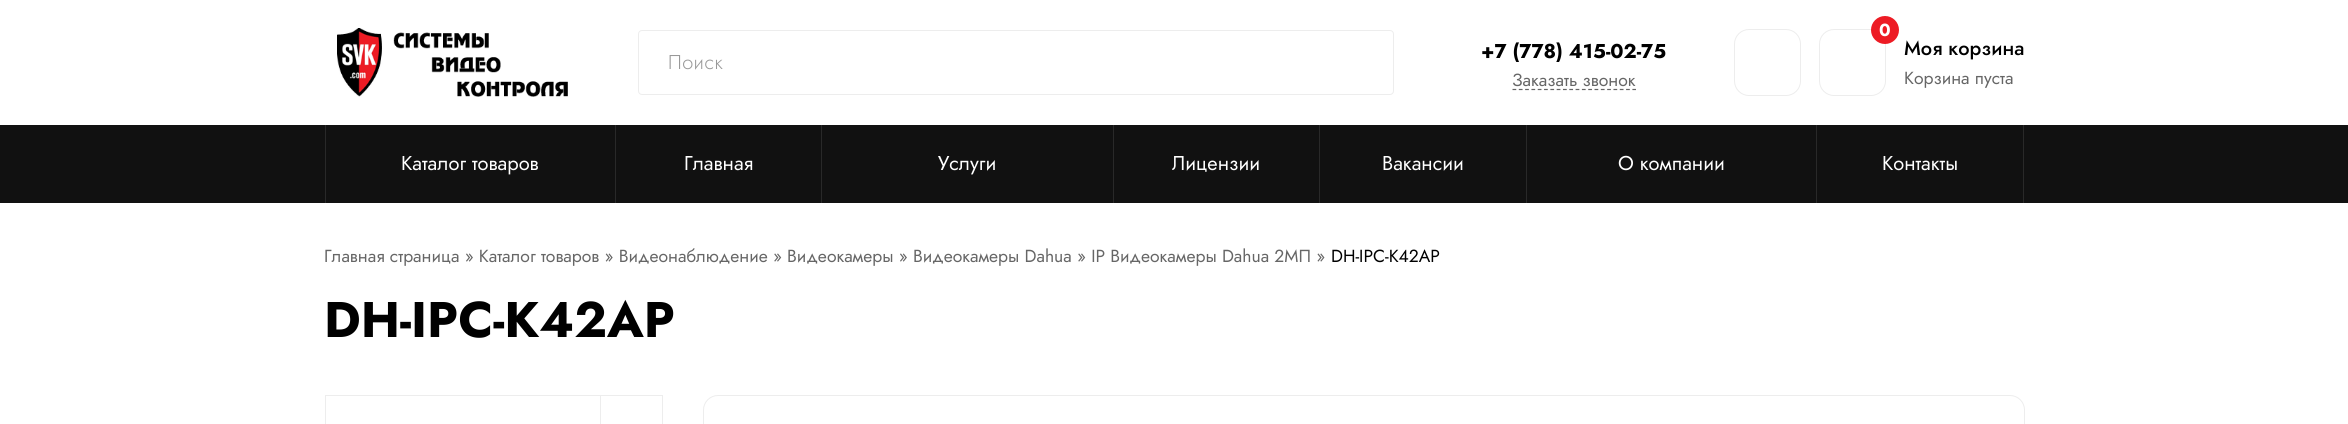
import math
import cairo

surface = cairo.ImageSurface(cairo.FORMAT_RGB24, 2348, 424)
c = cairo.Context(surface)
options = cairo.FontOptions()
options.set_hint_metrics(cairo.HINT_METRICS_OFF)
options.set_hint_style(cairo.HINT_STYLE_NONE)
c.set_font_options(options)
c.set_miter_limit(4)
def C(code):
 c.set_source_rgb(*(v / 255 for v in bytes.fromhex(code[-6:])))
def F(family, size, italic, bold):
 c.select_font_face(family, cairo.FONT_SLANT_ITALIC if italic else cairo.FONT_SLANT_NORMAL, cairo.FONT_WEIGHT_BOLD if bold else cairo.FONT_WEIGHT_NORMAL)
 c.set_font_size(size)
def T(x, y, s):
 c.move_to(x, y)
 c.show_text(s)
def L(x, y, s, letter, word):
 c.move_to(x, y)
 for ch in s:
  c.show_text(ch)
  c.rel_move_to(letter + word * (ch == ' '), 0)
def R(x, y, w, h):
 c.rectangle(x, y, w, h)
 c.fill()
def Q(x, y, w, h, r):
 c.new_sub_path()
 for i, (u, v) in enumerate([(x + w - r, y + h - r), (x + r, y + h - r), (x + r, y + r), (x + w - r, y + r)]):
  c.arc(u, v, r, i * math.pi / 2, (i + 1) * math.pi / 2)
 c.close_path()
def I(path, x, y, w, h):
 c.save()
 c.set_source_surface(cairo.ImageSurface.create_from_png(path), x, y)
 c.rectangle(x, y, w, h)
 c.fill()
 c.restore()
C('ffffff')
c.paint()
I('1.png',337,28,231,69)
Q(638.5,30.5,755,64,3.5)
C('ededed')
c.set_line_width(1)
c.stroke()
F('Jost Light',20,0,0)
C('999999')
L(668,69,'Поиск',.5,0)
F('Jost',20,0,1)
C('000000')
T(1481,58,'+7 (778) 415-02-75')
c.new_path()
c.move_to(1512.5,89.5)
c.line_to(1636,89.5)
C('666666')
c.set_line_width(1.2)
c.set_dash([3.75,2.56])
c.stroke()
F('Jost',17.5,0,0)
T(1512,86,'Заказать звонок')
Q(1734.5,29.5,66,66,14.5)
C('ededed')
c.set_line_width(1)
c.set_dash([])
c.stroke()
Q(1819.5,29.5,66,66,14.5)
c.stroke()
C('ed1b24')
c.arc(1885,30,14,0,2 * math.pi)
c.fill()
F('Jost',17.5,0,1)
C('ffffff')
T(1879,36,'0')
F('Jost Medium',20,0,0)
C('000000')
T(1904,55,'Моя корзина')
F('Jost',17.5,0,0)
C('666666')
T(1904,84,'Корзина пуста')
C('111111')
R(0,125,2348,78)
C('292929')
R(325,125,1,78)
R(615,125,1,78)
F('Jost',20,0,0)
C('ffffff')
T(401,170,'Каталог товаров')
C('292929')
R(821,125,1,78)
C('ffffff')
T(684,170,'Главная')
C('292929')
R(1113,125,1,78)
C('ffffff')
T(938,170,'Услуги')
C('292929')
R(1319,125,1,78)
C('ffffff')
T(1172,170,'Лицензии')
C('292929')
R(1526,125,1,78)
C('ffffff')
T(1382,170,'Вакансии')
C('292929')
R(1816,125,1,78)
C('ffffff')
T(1618,170,'О компании')
C('292929')
R(2023,125,1,78)
C('ffffff')
T(1882,170,'Контакты')
F('Jost',17.5,0,0)
C('666666')
T(324,262,'Главная страница » Каталог товаров » Видеонаблюдение » Видеокамеры » Видеокамеры Dahua » IP Видеокамеры Dahua 2МП »')
C('000000')
T(1331,262,'DH-IPC-K42AP')
F('Jost',50,0,1)
T(324,337,'DH-IPC-K42AP')
c.rectangle(325.5,395.5,337,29)
C('ededed')
c.stroke()
R(600,396,1,28)
Q(703.5,395.5,1321,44,14.5)
c.stroke()
surface.write_to_png('o.png')
